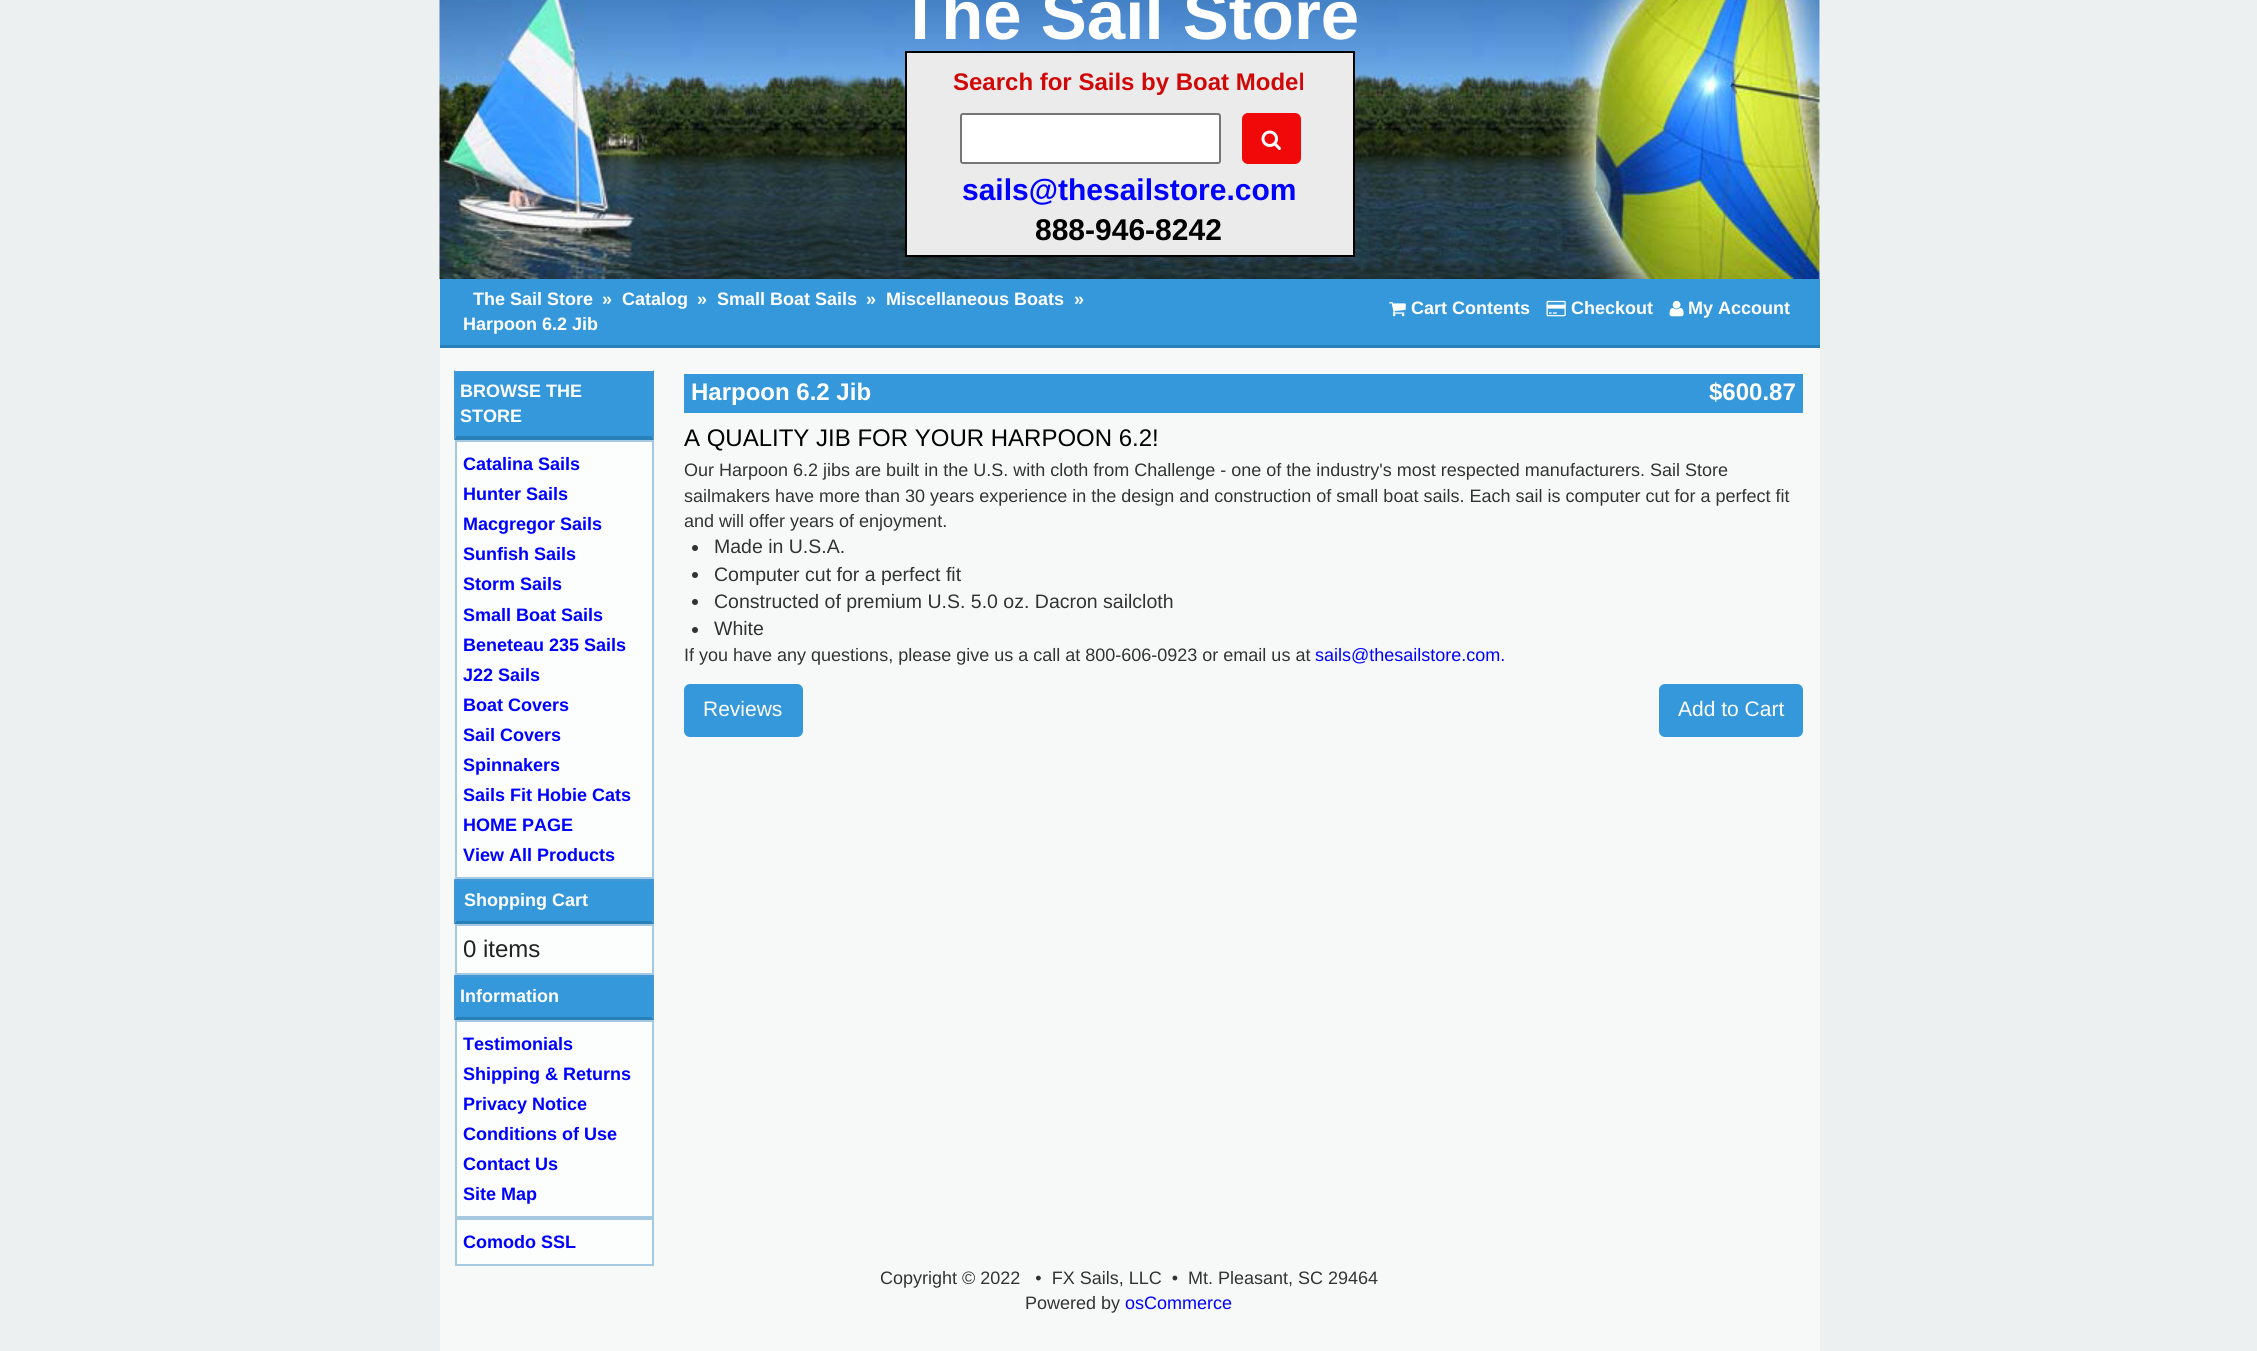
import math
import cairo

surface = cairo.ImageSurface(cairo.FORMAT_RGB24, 2257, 1351)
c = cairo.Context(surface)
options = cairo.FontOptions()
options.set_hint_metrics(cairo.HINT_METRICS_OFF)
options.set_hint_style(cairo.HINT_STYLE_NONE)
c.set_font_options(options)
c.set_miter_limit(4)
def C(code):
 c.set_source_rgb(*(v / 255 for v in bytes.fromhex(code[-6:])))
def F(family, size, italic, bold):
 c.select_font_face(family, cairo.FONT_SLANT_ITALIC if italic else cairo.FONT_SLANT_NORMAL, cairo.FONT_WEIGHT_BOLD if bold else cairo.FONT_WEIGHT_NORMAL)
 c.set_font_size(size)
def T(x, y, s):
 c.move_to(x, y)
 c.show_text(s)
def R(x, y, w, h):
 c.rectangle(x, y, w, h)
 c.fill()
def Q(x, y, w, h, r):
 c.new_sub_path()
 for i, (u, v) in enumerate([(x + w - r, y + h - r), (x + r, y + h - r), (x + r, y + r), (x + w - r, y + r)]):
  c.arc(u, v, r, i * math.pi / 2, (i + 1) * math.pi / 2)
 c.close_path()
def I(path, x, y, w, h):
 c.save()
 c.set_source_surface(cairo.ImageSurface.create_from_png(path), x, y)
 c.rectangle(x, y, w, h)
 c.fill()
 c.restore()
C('ecf0f1')
c.paint()
C('f7f9f9')
R(440,0,1380,1351)
I('1.png',439,0,1381,279)
F('Liberation Sans',69,0,1)
C('ffffff')
T(899,39,'The Sail Store')
C('ebebeb')
c.rectangle(906,52,448,204)
c.fill_preserve()
C('000000')
c.stroke()
F('Liberation Sans',24,0,1)
C('d10808')
T(953,90,'Search for Sails by Boat Model')
C('ffffff')
Q(961,114,259,49,2)
c.fill_preserve()
C('767676')
c.stroke()
C('f10909')
Q(1243,114,57,49,5)
c.fill_preserve()
c.stroke()
I('2.png',1261,130,20,20)
F('Liberation Sans',30,0,1)
C('0000ff')
T(962,200,'sails@thesailstore.com')
C('000000')
T(1035,240,'888-946-8242')
C('3498db')
R(440,279,1380,66)
C('2980b9')
R(440,345,1380,3)
F('Liberation Sans',18,0,1)
C('ffffff')
T(473,305,'The Sail Store')
T(602,305,'»')
T(622,305,'Catalog')
T(697,305,'»')
T(717,305,'Small Boat Sails')
T(866,305,'»')
T(886,305,'Miscellaneous Boats')
T(1074,305,'»')
T(463,330,'Harpoon 6.2 Jib')
I('3.png',1389,302,17,15)
T(1411,314,'Cart Contents')
I('4.png',1546,300,20,17)
T(1571,314,'Checkout')
I('5.png',1669,300,15,17)
T(1688,314,'My Account')
C('3498db')
R(456,373,197,64)
C('4297d7')
R(455,371,199,2)
c.new_path()
c.move_to(654,370)
c.line_to(654,440)
c.line_to(652,436)
c.line_to(652,372)
c.close_path()
c.fill()
C('2980b9')
c.new_path()
c.move_to(654,440)
c.line_to(454,440)
c.line_to(456,436)
c.line_to(652,436)
c.close_path()
c.fill()
C('4297d7')
c.new_path()
c.move_to(454,440)
c.line_to(454,370)
c.line_to(456,372)
c.line_to(456,436)
c.close_path()
c.fill()
C('ffffff')
T(460,397,'BROWSE THE')
T(460,422,'STORE')
C('fcfdfd')
c.rectangle(456,441,197,437)
c.fill_preserve()
C('a6c9e2')
c.stroke()
C('0000ff')
T(463,470,'Catalina Sails')
T(463,500,'Hunter Sails')
T(463,530,'Macgregor Sails')
T(463,560,'Sunfish Sails')
T(463,590,'Storm Sails')
T(463,621,'Small Boat Sails')
T(463,651,'Beneteau 235 Sails')
T(463,681,'J22 Sails')
T(463,711,'Boat Covers')
T(463,741,'Sail Covers')
T(463,771,'Spinnakers')
T(463,801,'Sails Fit Hobie Cats')
T(463,831,'HOME PAGE')
T(463,861,'View All Products')
C('3498db')
R(456,881,196,40)
C('4297d7')
R(455,879,199,2)
c.new_path()
c.move_to(654,879)
c.line_to(654,924)
c.line_to(652,921)
c.line_to(652,880)
c.close_path()
c.fill()
C('2980b9')
c.new_path()
c.move_to(654,924)
c.line_to(454,924)
c.line_to(456,921)
c.line_to(652,921)
c.close_path()
c.fill()
C('4297d7')
c.new_path()
c.move_to(454,924)
c.line_to(454,879)
c.line_to(456,880)
c.line_to(456,921)
c.close_path()
c.fill()
C('ffffff')
T(464,906,'Shopping Cart')
C('fcfdfd')
c.rectangle(456,925,197,49)
c.fill_preserve()
C('a6c9e2')
c.stroke()
F('Liberation Sans',24,0,0)
C('222222')
T(463,957,'0 items')
C('3498db')
R(456,977,196,40)
C('4297d7')
R(455,975,199,2)
c.new_path()
c.move_to(654,975)
c.line_to(654,1020)
c.line_to(652,1017)
c.line_to(652,976)
c.close_path()
c.fill()
C('2980b9')
c.new_path()
c.move_to(654,1020)
c.line_to(454,1020)
c.line_to(456,1017)
c.line_to(652,1017)
c.close_path()
c.fill()
C('4297d7')
c.new_path()
c.move_to(454,1020)
c.line_to(454,975)
c.line_to(456,976)
c.line_to(456,1017)
c.close_path()
c.fill()
F('Liberation Sans',18,0,1)
C('ffffff')
T(460,1002,'Information')
C('fcfdfd')
c.rectangle(456,1021,197,196)
c.fill_preserve()
C('a6c9e2')
c.stroke()
C('0000ff')
T(463,1050,'Testimonials')
T(463,1080,'Shipping & Returns')
T(463,1110,'Privacy Notice')
T(463,1140,'Conditions of Use')
T(463,1170,'Contact Us')
T(463,1200,'Site Map')
C('fcfdfd')
c.rectangle(456,1219,197,46)
c.fill_preserve()
C('a6c9e2')
c.stroke()
C('0000ff')
T(463,1248,'Comodo SSL')
C('3498db')
R(684,374,1119,39)
F('Liberation Sans',24,0,1)
C('ffffff')
T(691,400,'Harpoon 6.2 Jib')
T(1709,400,'$600.87')
F('Liberation Sans',24,0,0)
C('000000')
T(684,446,'A QUALITY JIB FOR YOUR HARPOON 6.2!')
F('Liberation Sans',18,0,0)
C('333333')
T(684,476,'Our Harpoon 6.2 jibs are built in the U.S. with cloth from Challenge - one of the industry\'s most respected manufacturers. Sail Store')
T(684,502,'sailmakers have more than 30 years experience in the design and construction of small boat sails. Each sail is computer cut for a perfect fit')
T(684,527,'and will offer years of enjoyment.')
c.new_path()
c.arc(695,548,3,0,2 * math.pi)
c.fill()
F('Liberation Sans',19.5,0,0)
T(714,553,'Made in U.S.A.')
c.new_path()
c.arc(695,575,3,0,2 * math.pi)
c.fill()
T(714,581,'Computer cut for a perfect fit')
c.new_path()
c.arc(695,602,3,0,2 * math.pi)
c.fill()
T(714,608,'Constructed of premium U.S. 5.0 oz. Dacron sailcloth')
c.new_path()
c.arc(695,630,3,0,2 * math.pi)
c.fill()
T(714,635,'White')
F('Liberation Sans',18,0,0)
T(684,661,'If you have any questions, please give us a call at 800-606-0923 or email us at')
C('0000ff')
T(1315,661,'sails@thesailstore.com.')
C('3498db')
Q(685,685,117,51,5)
c.fill_preserve()
c.stroke()
F('Liberation Sans',21,0,0)
C('ffffff')
T(703,716,'Reviews')
C('3498db')
Q(1660,685,142,51,5)
c.fill_preserve()
c.stroke()
C('ffffff')
T(1678,716,'Add to Cart')
F('Liberation Sans',18,0,0)
C('333333')
T(880,1284,'Copyright © 2022   •  FX Sails, LLC  •  Mt. Pleasant, SC 29464')
T(1025,1309,'Powered by')
C('0000ff')
T(1125,1309,'osCommerce')
surface.write_to_png('o.png')
